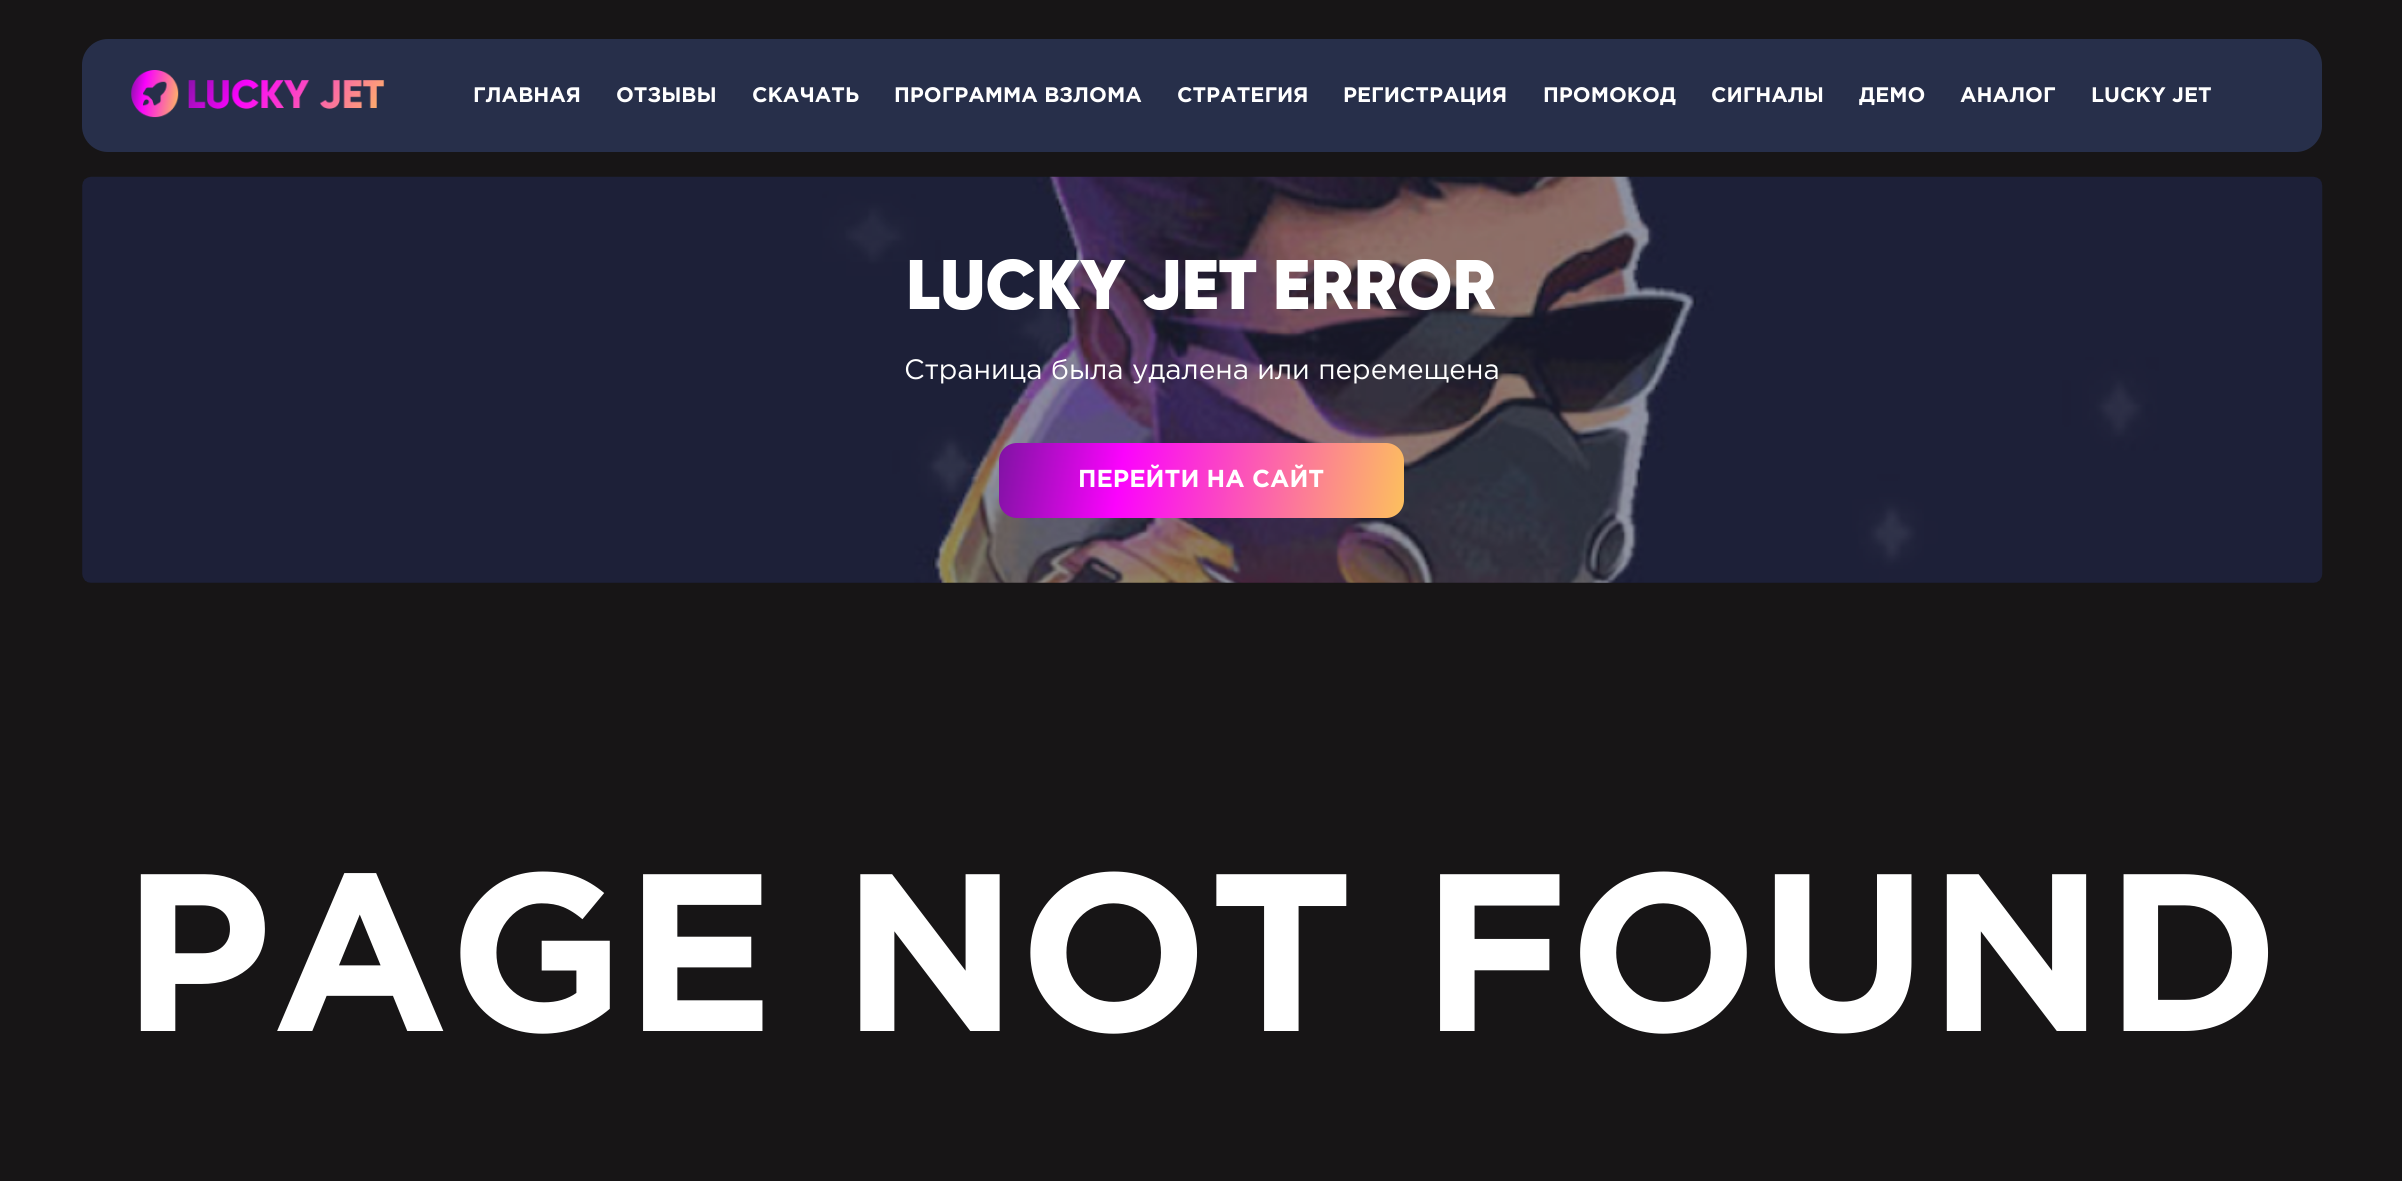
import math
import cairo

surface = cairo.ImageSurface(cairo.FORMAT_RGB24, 2402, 1181)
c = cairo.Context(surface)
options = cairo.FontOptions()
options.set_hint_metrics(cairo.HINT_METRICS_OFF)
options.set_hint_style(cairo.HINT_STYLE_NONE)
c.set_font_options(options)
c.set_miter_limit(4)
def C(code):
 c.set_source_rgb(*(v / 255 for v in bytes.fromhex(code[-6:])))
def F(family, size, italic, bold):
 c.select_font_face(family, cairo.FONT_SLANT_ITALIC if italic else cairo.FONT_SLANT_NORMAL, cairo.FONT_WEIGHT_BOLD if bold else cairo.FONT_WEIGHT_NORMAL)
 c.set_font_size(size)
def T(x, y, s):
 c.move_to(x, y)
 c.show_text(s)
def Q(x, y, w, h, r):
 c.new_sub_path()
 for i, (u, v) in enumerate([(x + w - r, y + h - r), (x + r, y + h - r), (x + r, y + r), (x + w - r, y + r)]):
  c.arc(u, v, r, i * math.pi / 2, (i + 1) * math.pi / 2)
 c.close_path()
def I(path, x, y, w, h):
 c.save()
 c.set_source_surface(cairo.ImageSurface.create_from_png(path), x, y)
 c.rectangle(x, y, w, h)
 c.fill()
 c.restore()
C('171516')
c.paint()
C('272f4a')
Q(82,39,2240,113,26)
c.fill()
I('1.png',131,70,254,48)
F('Gotham',21,0,1)
C('ffffff')
T(473,102,'ГЛАВНАЯ')
T(616,102,'ОТЗЫВЫ')
T(752,102,'СКАЧАТЬ')
T(894,102,'ПРОГРАММА ВЗЛОМА')
T(1177,102,'СТРАТЕГИЯ')
T(1343,102,'РЕГИСТРАЦИЯ')
T(1543,102,'ПРОМОКОД')
T(1711,102,'СИГНАЛЫ')
T(1859,102,'ДЕМО')
T(1960,102,'АНАЛОГ')
T(2091,102,'LUCKY JET')
I('2.png',82,176,2241,407)
F('Gilroy Black',70,0,0)
T(906,309,'LUCKY JET ERROR')
F('Gotham',28,0,0)
T(904,379,'Страница была удалена или перемещена')
gradient = cairo.LinearGradient(983,444,1496,529)
gradient.add_color_stop_rgba(0,0.439,0.082,0.596,1)
gradient.add_color_stop_rgba(.27,0.984,0.012,0.992,1)
gradient.add_color_stop_rgba(1,0.992,0.992,0.161,1)
c.set_source(gradient)
Q(999,443,405,75,18)
c.fill()
F('Gotham',24.5,0,1)
C('ffffff')
T(1078,487,'ПЕРЕЙТИ НА САЙТ')
F('Gotham',224,0,1)
T(122,1031,'PAGE NOT FOUND')
surface.write_to_png('o.png')
